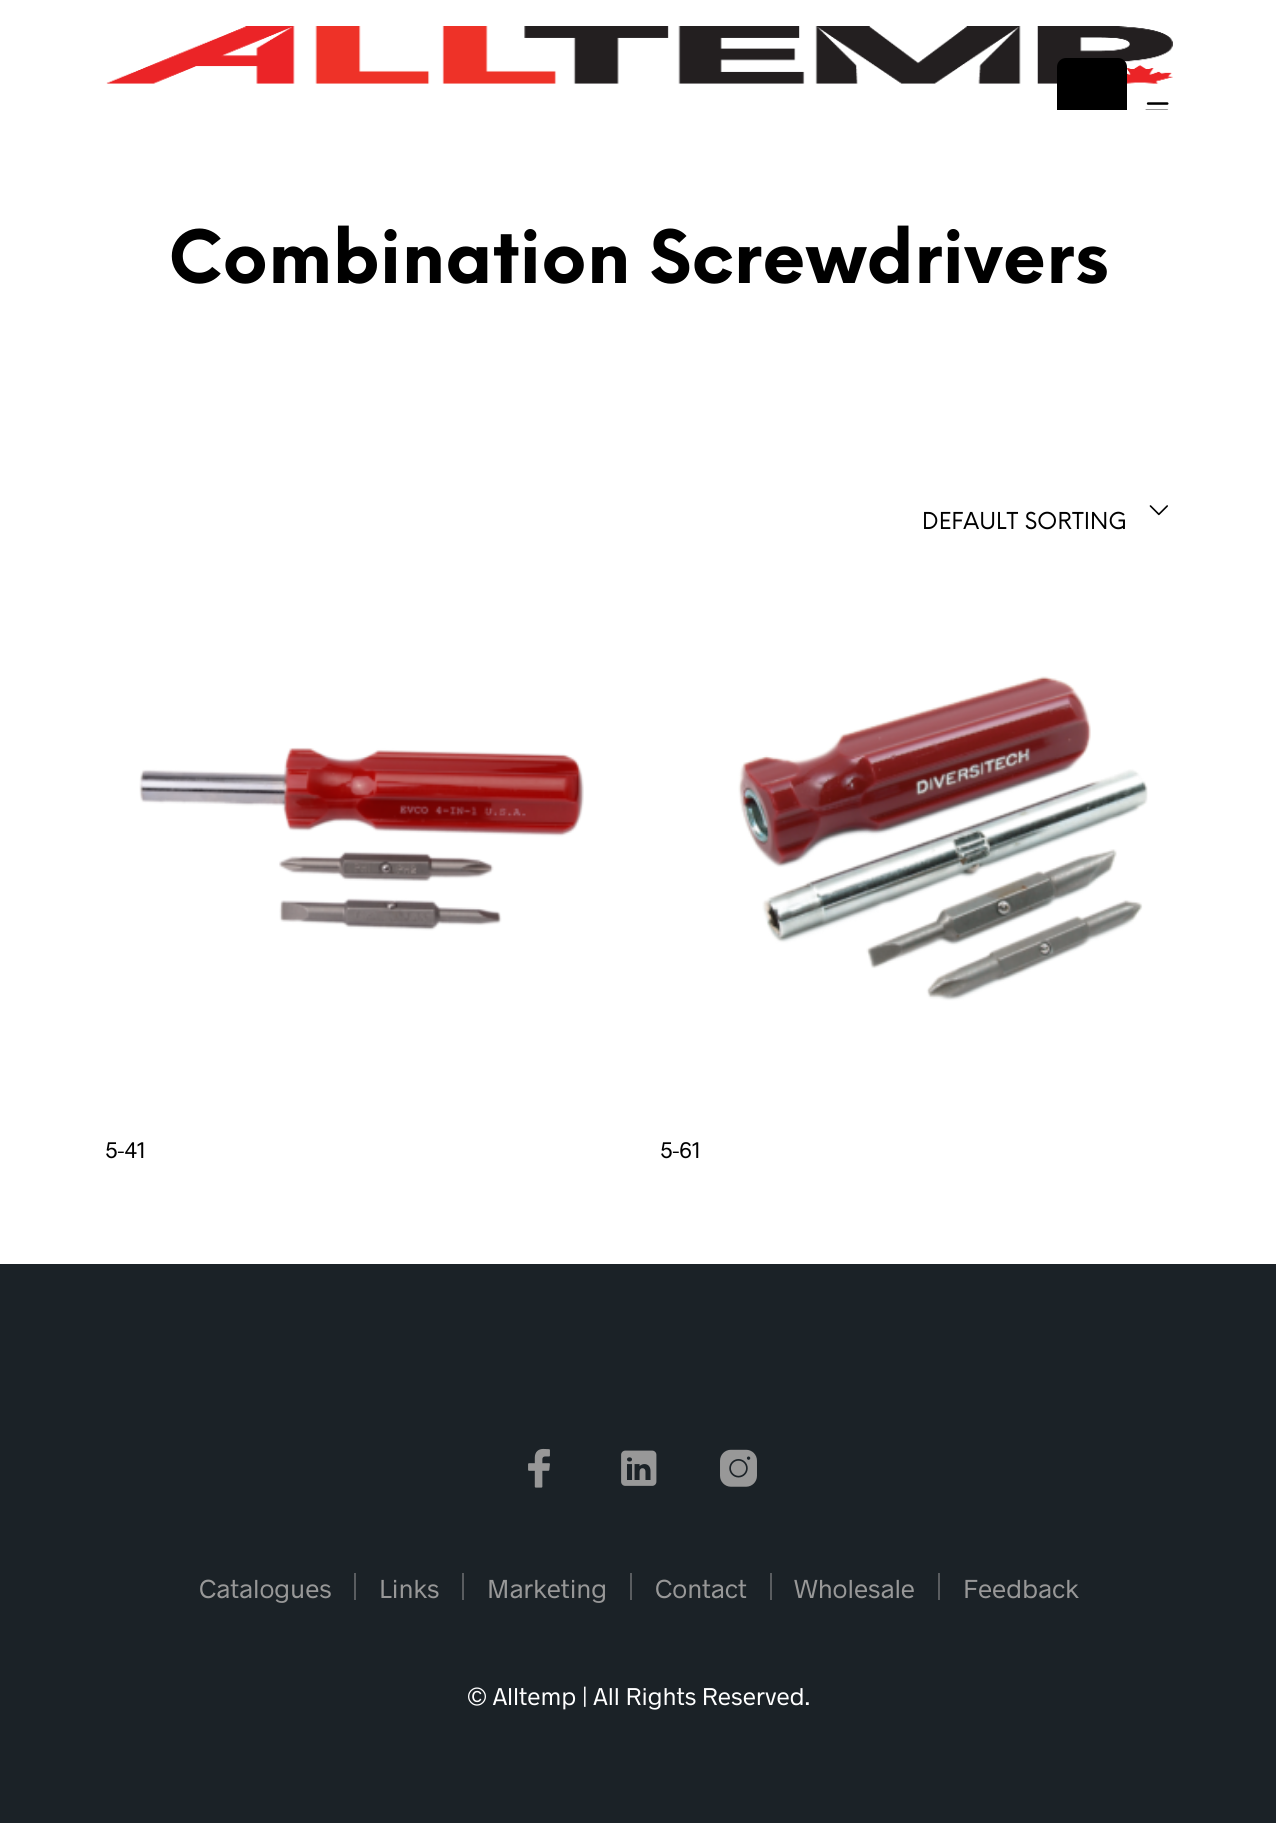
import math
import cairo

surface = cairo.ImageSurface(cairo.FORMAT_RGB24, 1276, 1823)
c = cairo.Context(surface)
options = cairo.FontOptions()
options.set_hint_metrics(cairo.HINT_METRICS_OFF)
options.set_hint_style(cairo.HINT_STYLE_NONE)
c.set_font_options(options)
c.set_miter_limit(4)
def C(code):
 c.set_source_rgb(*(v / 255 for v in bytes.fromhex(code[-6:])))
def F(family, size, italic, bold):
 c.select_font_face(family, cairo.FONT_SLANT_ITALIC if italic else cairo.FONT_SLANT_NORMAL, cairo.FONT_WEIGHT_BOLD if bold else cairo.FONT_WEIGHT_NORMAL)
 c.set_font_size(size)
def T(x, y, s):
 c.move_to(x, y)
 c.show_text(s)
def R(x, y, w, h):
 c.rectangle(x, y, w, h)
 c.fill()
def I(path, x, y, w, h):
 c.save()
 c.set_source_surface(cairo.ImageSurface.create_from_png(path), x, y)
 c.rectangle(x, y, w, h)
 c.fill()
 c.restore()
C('ffffff')
c.paint()
I('1.png',106,26,1067,58)
C('000000')
c.new_path()
c.move_to(1066,58)
c.line_to(1118,58)
c.curve_to(1123,58,1127,62,1127,67)
c.line_to(1127,110)
c.line_to(1057,110)
c.line_to(1057,67)
c.curve_to(1057,62,1061,58,1066,58)
c.close_path()
c.fill()
I('2.png',1145,102,24,8)
F('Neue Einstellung',71.75,0,1)
T(168,283,'Combination Screwdrivers')
F('Neue Einstellung',22.75,0,0)
T(922,529,'DEFAULT SORTING')
I('3.png',1149,505,19,11)
I('4.png',139,747,445,184)
F('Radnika',22.75,0,0)
T(105,1158,'5-41')
I('5.png',738,676,410,325)
T(660,1158,'5-61')
C('1b2227')
R(0,1264,1276,559)
I('6.png',528,1448,22,40)
I('7.png',621,1450,36,36)
I('8.png',720,1449,37,38)
F('Radnika',26.25,0,0)
C('989898')
T(199,1598,'Catalogues')
C('5a5d60')
R(354,1573,2,27)
C('989898')
T(379,1598,'Links')
C('5a5d60')
R(462,1573,2,27)
C('989898')
T(487,1598,'Marketing')
C('5a5d60')
R(630,1573,2,27)
C('989898')
T(655,1598,'Contact')
C('5a5d60')
R(770,1573,2,27)
C('989898')
T(794,1598,'Wholesale')
C('5a5d60')
R(938,1573,2,27)
C('989898')
T(963,1598,'Feedback')
F('Radnika',24.5,0,0)
C('ffffff')
T(467,1705,'© Alltemp | All Rights Reserved.')
surface.write_to_png('o.png')
